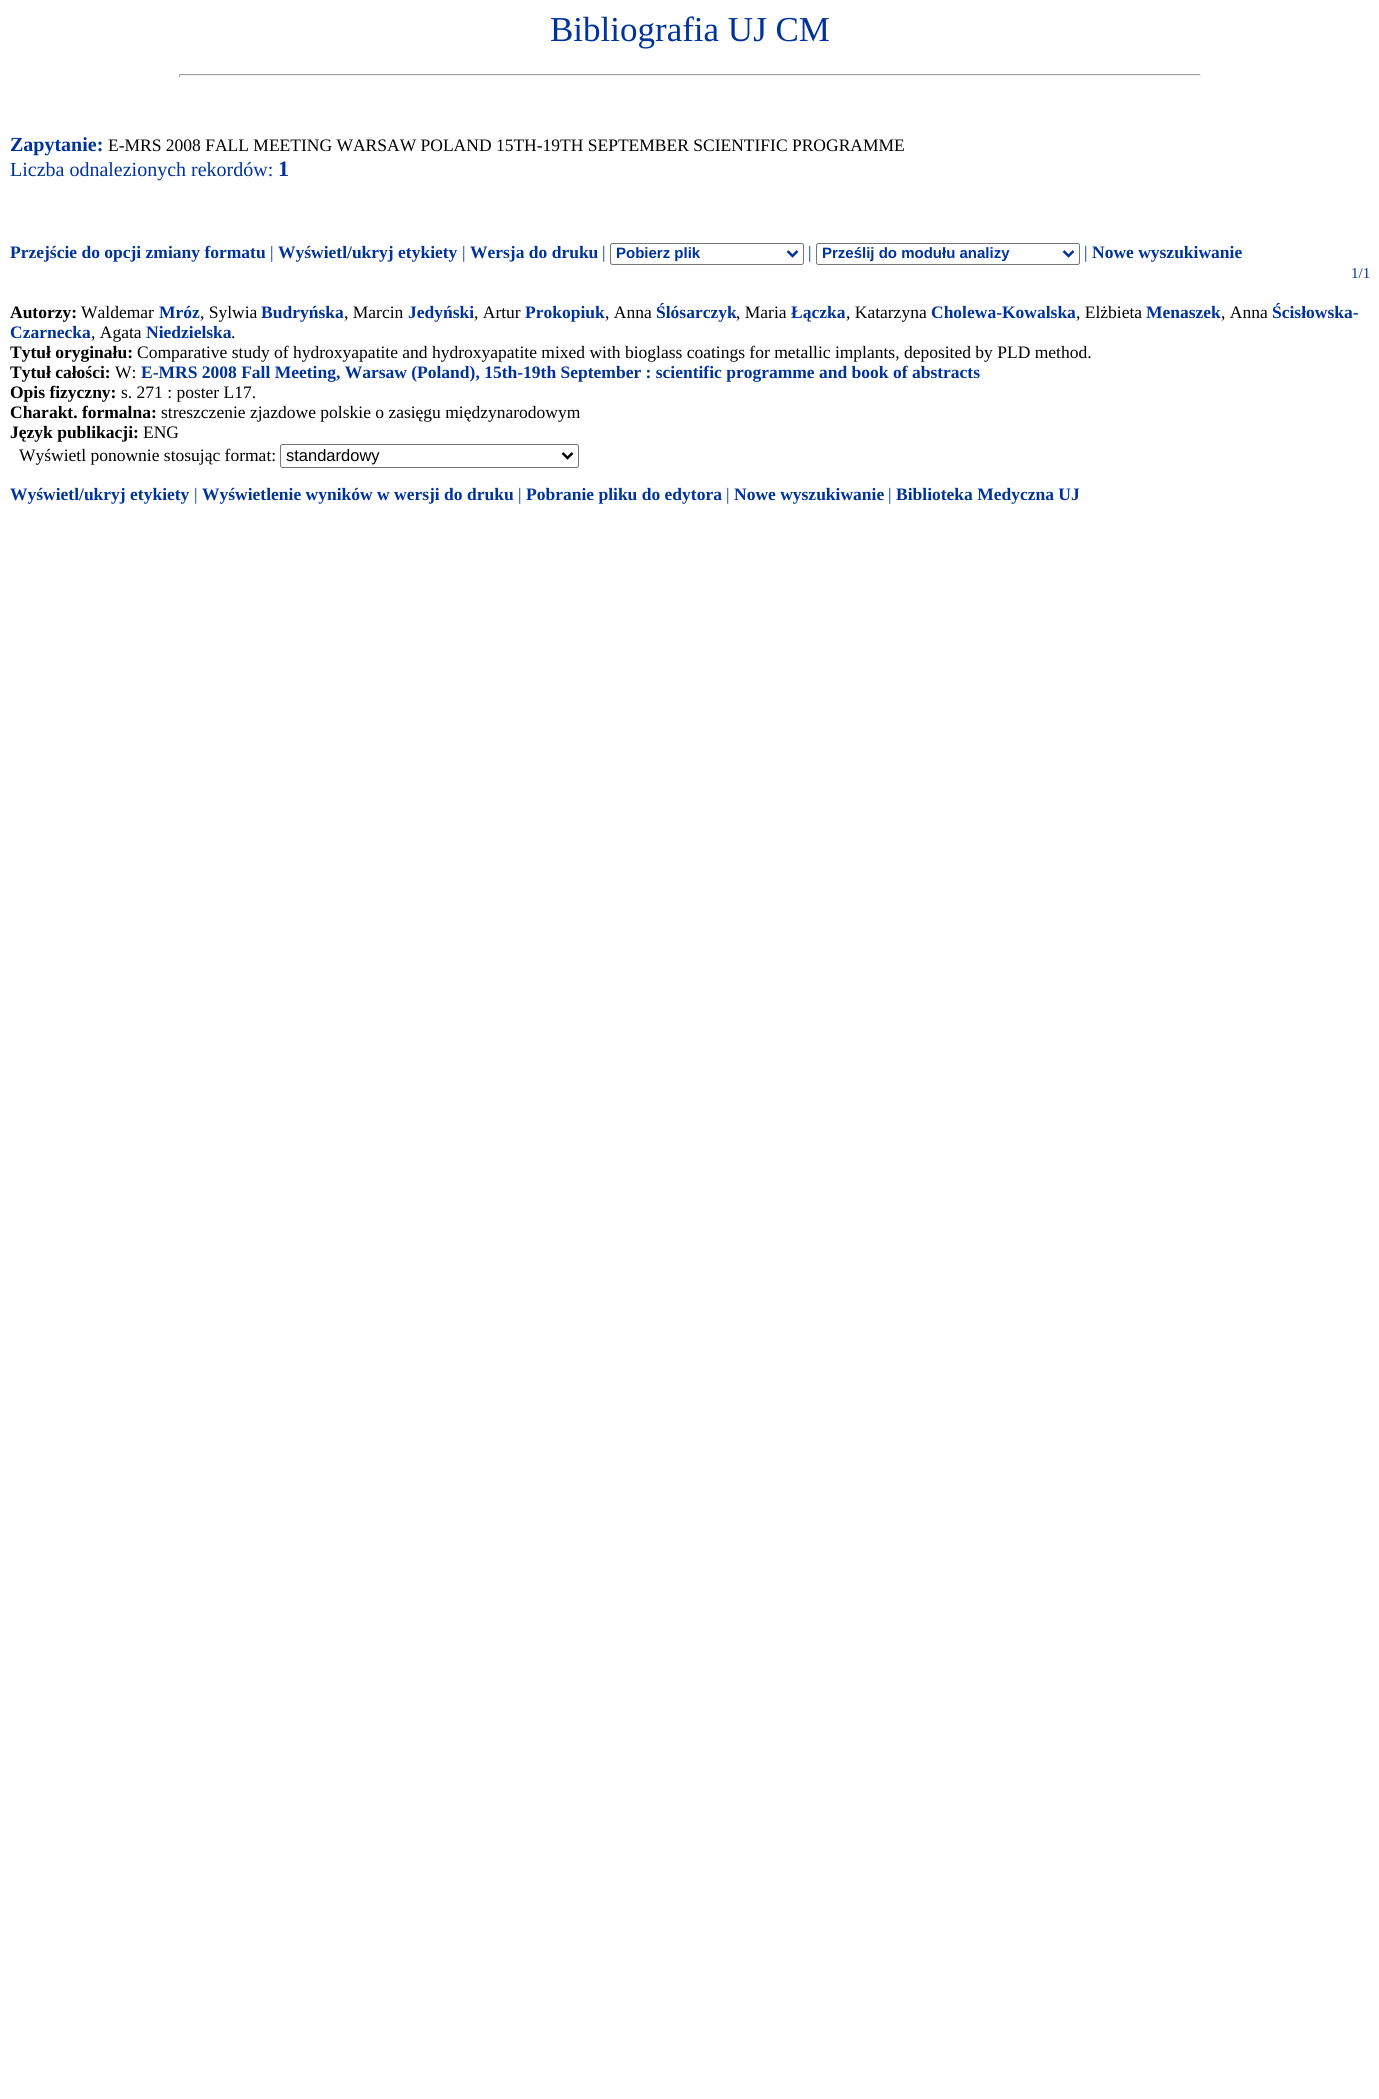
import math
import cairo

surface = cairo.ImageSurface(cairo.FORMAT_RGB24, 1379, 2099)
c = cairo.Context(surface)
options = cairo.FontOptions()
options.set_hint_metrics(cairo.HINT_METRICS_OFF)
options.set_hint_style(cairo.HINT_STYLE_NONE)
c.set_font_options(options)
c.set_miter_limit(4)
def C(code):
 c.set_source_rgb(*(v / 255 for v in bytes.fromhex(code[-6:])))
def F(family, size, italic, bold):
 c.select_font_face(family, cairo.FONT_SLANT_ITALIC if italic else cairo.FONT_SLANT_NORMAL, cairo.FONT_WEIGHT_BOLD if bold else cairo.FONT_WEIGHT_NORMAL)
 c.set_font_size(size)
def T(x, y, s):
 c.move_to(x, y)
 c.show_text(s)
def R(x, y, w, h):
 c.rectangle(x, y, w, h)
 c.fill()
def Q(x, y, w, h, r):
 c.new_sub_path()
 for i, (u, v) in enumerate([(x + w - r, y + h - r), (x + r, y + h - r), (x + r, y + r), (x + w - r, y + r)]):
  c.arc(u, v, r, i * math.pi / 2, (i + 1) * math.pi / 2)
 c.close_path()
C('ffffff')
c.paint()
F('Liberation Serif',35,0,0)
C('003399')
T(550,41,'Bibliografia UJ CM')
C('9f9f9f')
R(179,74,1022,1)
C('eeeeee')
R(1200,74,1,3)
R(179,75,1022,1)
C('9f9f9f')
R(179,74,1,3)
F('Liberation Serif',20,0,1)
C('003399')
T(10,151,'Zapytanie:')
F('Liberation Serif',17.5,0,0)
C('000000')
T(108,151,'E-MRS 2008 FALL MEETING WARSAW POLAND 15TH-19TH SEPTEMBER SCIENTIFIC PROGRAMME')
F('Liberation Serif',20,0,0)
C('003399')
T(10,176,'Liczba odnalezionych rekordów:')
F('Liberation Serif',22,0,1)
T(278,176,'1')
F('Liberation Serif',17.5,0,1)
T(10,258,'Przejście do opcji zmiany formatu')
F('Liberation Serif',17.5,0,0)
T(270,258,'|')
F('Liberation Serif',17.5,0,1)
T(278,258,'Wyświetl/ukryj etykiety')
F('Liberation Serif',17.5,0,0)
T(462,258,'|')
F('Liberation Serif',17.5,0,1)
T(470,258,'Wersja do druku')
F('Liberation Serif',17.5,0,0)
T(602,258,'|')
Q(610.5,243.5,193,21,2)
C('767676')
c.set_line_width(1)
c.stroke()
c.new_path()
c.move_to(787.5,251)
c.line_to(792.5,256)
c.line_to(797.5,251)
C('003399')
c.set_line_width(2.5)
c.stroke()
F('Liberation Sans',15,0,1)
T(616,258,'Pobierz plik')
F('Liberation Serif',17.5,0,0)
T(808,258,'|')
Q(816.5,243.5,263,21,2)
C('767676')
c.set_line_width(1)
c.stroke()
c.new_path()
c.move_to(1063.5,251)
c.line_to(1068.5,256)
c.line_to(1073.5,251)
C('003399')
c.set_line_width(2.5)
c.stroke()
F('Liberation Sans',15,0,1)
T(822,258,'Prześlij do modułu analizy')
F('Liberation Serif',17.5,0,0)
T(1084,258,'|')
F('Liberation Serif',17.5,0,1)
T(1092,258,'Nowe wyszukiwanie')
F('Liberation Serif',15,0,0)
T(1351,278,'1/1')
F('Liberation Serif',17.5,0,1)
C('000000')
T(10,318,'Autorzy:')
F('Liberation Serif',17.5,0,0)
T(81,318,'Waldemar')
F('Liberation Serif',17.5,0,1)
C('003399')
T(159,318,'Mróz')
F('Liberation Serif',17.5,0,0)
C('000000')
T(200,318,', Sylwia')
F('Liberation Serif',17.5,0,1)
C('003399')
T(261,318,'Budryńska')
F('Liberation Serif',17.5,0,0)
C('000000')
T(344,318,', Marcin')
F('Liberation Serif',17.5,0,1)
C('003399')
T(408,318,'Jedyński')
F('Liberation Serif',17.5,0,0)
C('000000')
T(474,318,', Artur')
F('Liberation Serif',17.5,0,1)
C('003399')
T(525,318,'Prokopiuk')
F('Liberation Serif',17.5,0,0)
C('000000')
T(605,318,', Anna')
F('Liberation Serif',17.5,0,1)
C('003399')
T(656,318,'Ślósarczyk')
F('Liberation Serif',17.5,0,0)
C('000000')
T(736,318,', Maria')
F('Liberation Serif',17.5,0,1)
C('003399')
T(791,318,'Łączka')
F('Liberation Serif',17.5,0,0)
C('000000')
T(846,318,', Katarzyna')
F('Liberation Serif',17.5,0,1)
C('003399')
T(931,318,'Cholewa-Kowalska')
F('Liberation Serif',17.5,0,0)
C('000000')
T(1076,318,', Elżbieta')
F('Liberation Serif',17.5,0,1)
C('003399')
T(1146,318,'Menaszek')
F('Liberation Serif',17.5,0,0)
C('000000')
T(1221,318,', Anna')
F('Liberation Serif',17.5,0,1)
C('003399')
T(1272,318,'Ścisłowska-')
T(10,338,'Czarnecka')
F('Liberation Serif',17.5,0,0)
C('000000')
T(91,338,', Agata')
F('Liberation Serif',17.5,0,1)
C('003399')
T(146,338,'Niedzielska')
F('Liberation Serif',17.5,0,0)
C('000000')
T(231,338,'.')
F('Liberation Serif',17.5,0,1)
T(10,358,'Tytuł oryginału:')
F('Liberation Serif',17.5,0,0)
T(137,358,'Comparative study of hydroxyapatite and hydroxyapatite mixed with bioglass coatings for metallic implants, deposited by PLD method.')
F('Liberation Serif',17.5,0,1)
T(10,378,'Tytuł całości:')
F('Liberation Serif',17.5,0,0)
T(115,378,'W:')
F('Liberation Serif',17.5,0,1)
C('003399')
T(141,378,'E-MRS 2008 Fall Meeting, Warsaw (Poland), 15th-19th September : scientific programme and book of abstracts')
C('000000')
T(10,398,'Opis fizyczny:')
F('Liberation Serif',17.5,0,0)
T(121,398,'s. 271 : poster L17.')
F('Liberation Serif',17.5,0,1)
T(10,418,'Charakt. formalna:')
F('Liberation Serif',17.5,0,0)
T(161,418,'streszczenie zjazdowe polskie o zasięgu międzynarodowym')
F('Liberation Serif',17.5,0,1)
T(10,438,'Język publikacji:')
F('Liberation Serif',17.5,0,0)
T(143,438,'ENG')
T(19,461,'Wyświetl ponownie stosując format:')
Q(280.5,444.5,298,23,2)
C('767676')
c.set_line_width(1)
c.stroke()
c.new_path()
c.move_to(562.5,453)
c.line_to(567.5,458)
c.line_to(572.5,453)
C('000000')
c.set_line_width(2.5)
c.stroke()
F('Liberation Sans',16.5,0,0)
T(286,461,'standardowy')
F('Liberation Serif',17.5,0,1)
C('003399')
T(10,500,'Wyświetl/ukryj etykiety')
F('Liberation Serif',17.5,0,0)
T(194,500,'|')
F('Liberation Serif',17.5,0,1)
T(202,500,'Wyświetlenie wyników w wersji do druku')
F('Liberation Serif',17.5,0,0)
T(518,500,'|')
F('Liberation Serif',17.5,0,1)
T(526,500,'Pobranie pliku do edytora')
F('Liberation Serif',17.5,0,0)
T(726,500,'|')
F('Liberation Serif',17.5,0,1)
T(734,500,'Nowe wyszukiwanie')
F('Liberation Serif',17.5,0,0)
T(888,500,'|')
F('Liberation Serif',17.5,0,1)
T(896,500,'Biblioteka Medyczna UJ')
surface.write_to_png('o.png')
